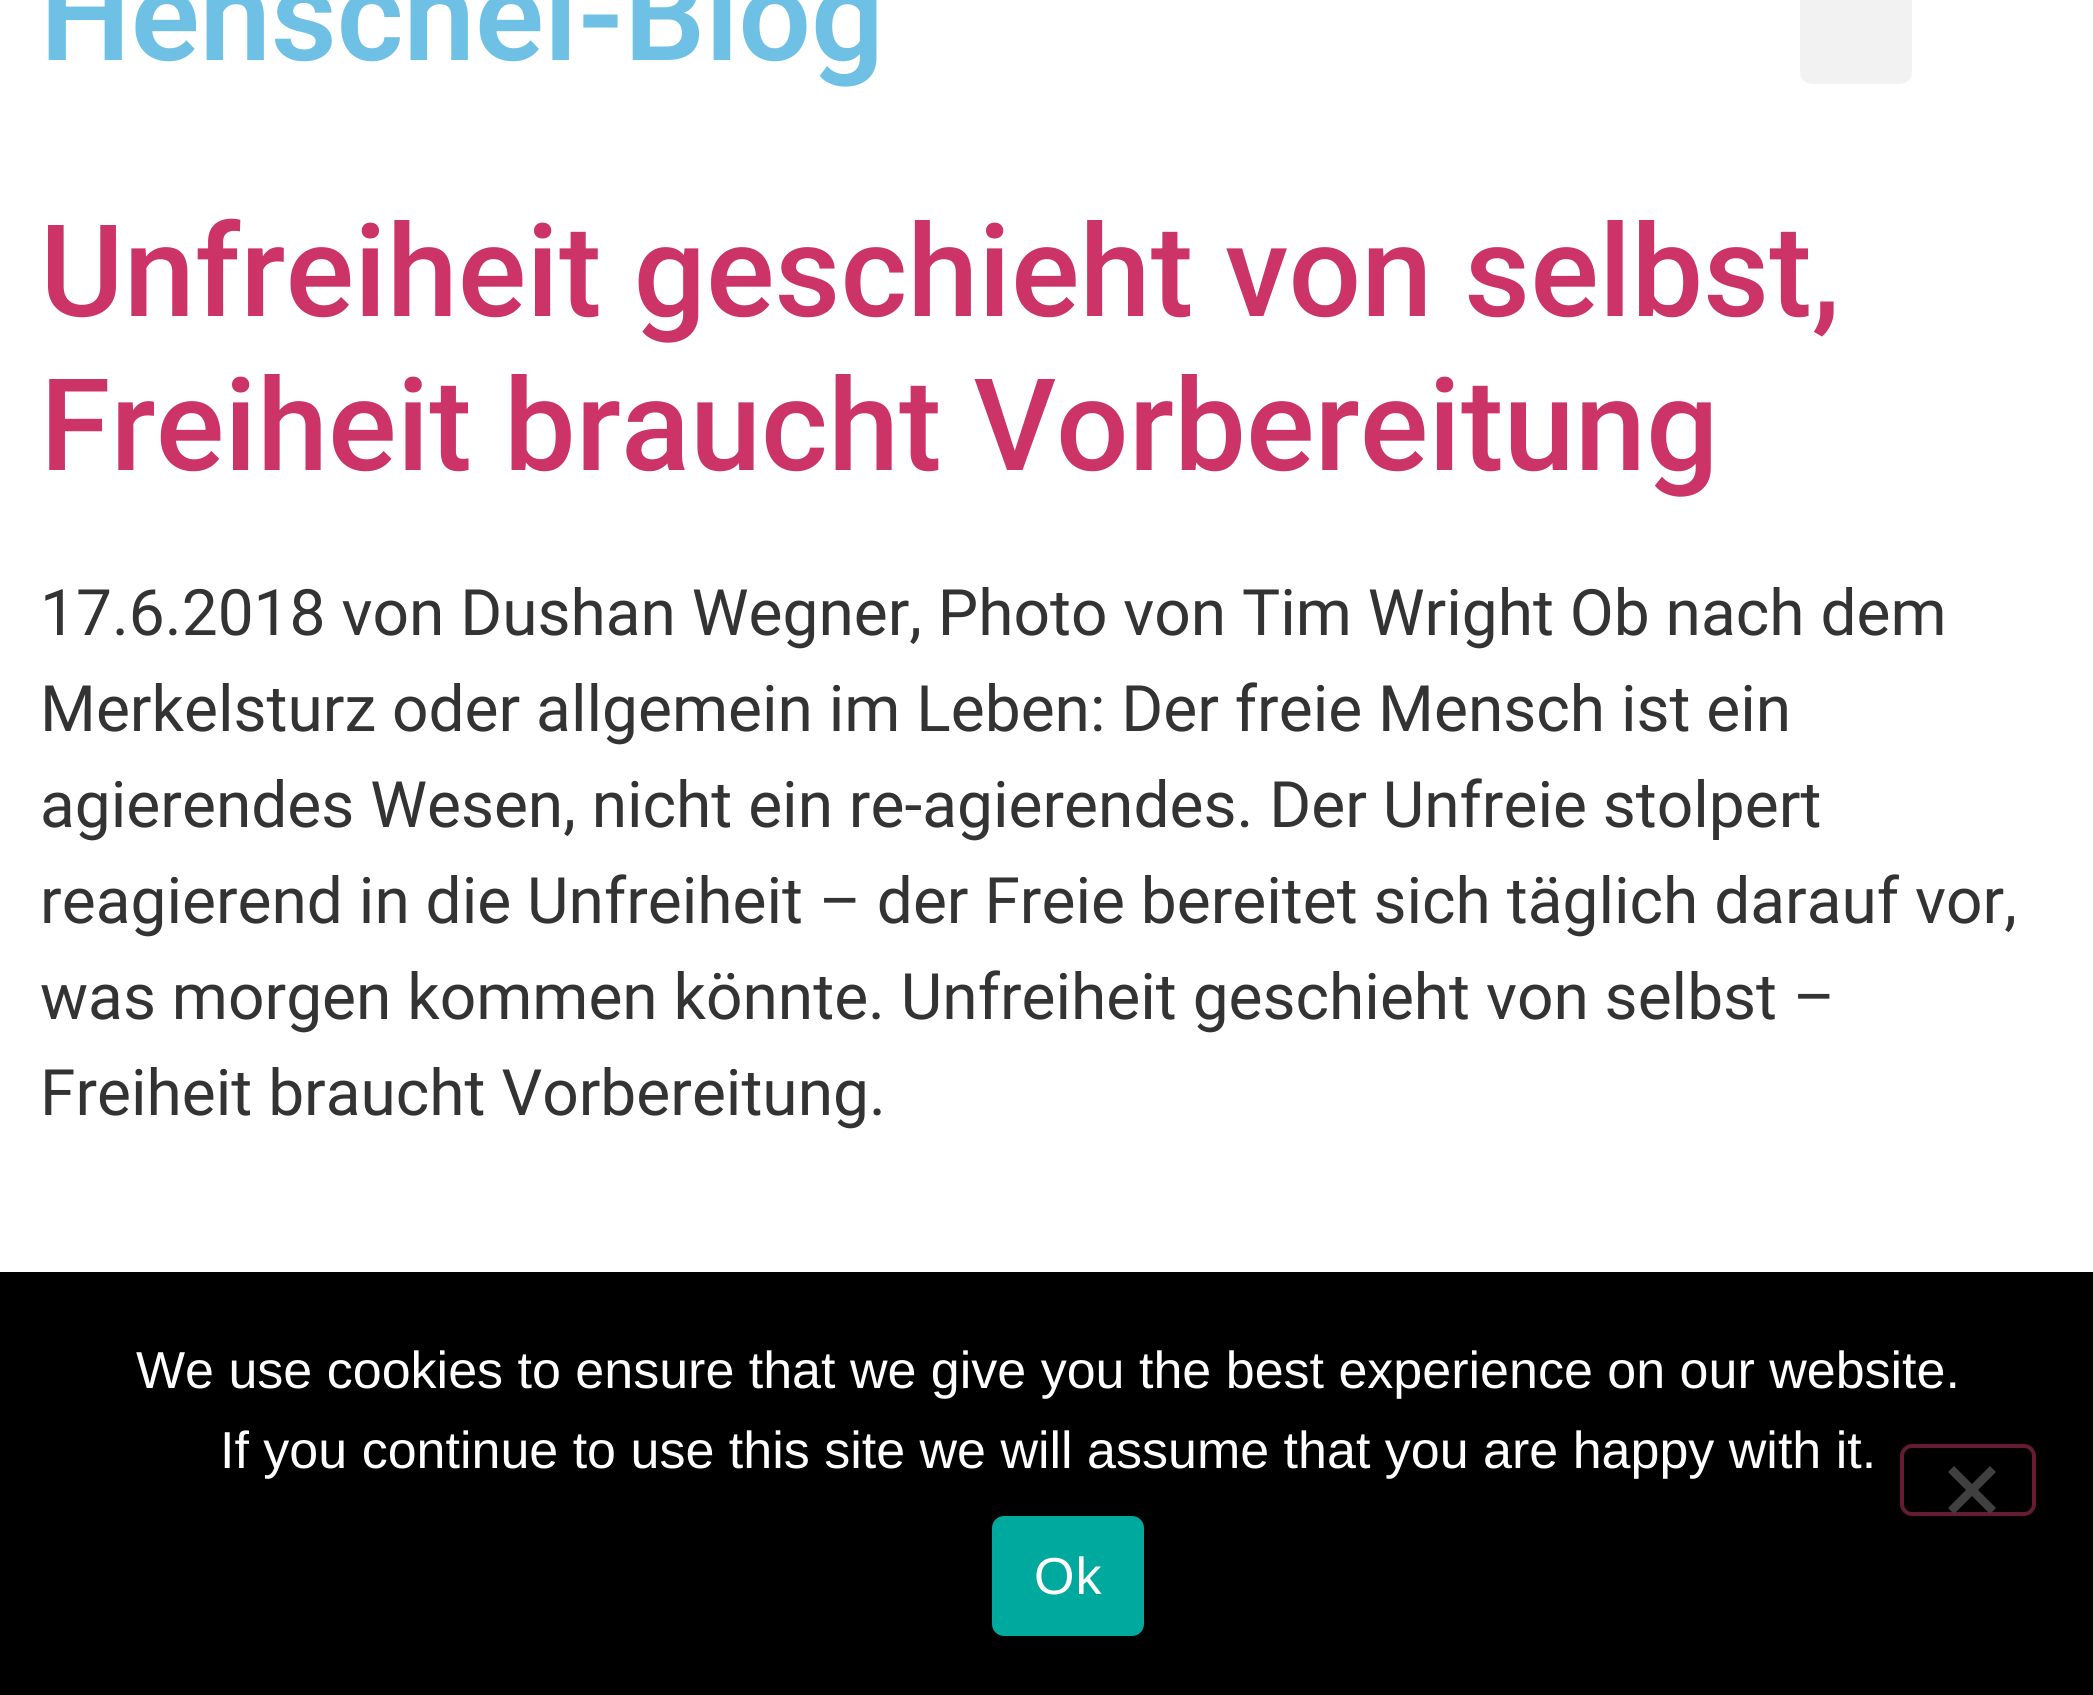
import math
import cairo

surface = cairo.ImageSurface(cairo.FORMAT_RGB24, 2093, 1695)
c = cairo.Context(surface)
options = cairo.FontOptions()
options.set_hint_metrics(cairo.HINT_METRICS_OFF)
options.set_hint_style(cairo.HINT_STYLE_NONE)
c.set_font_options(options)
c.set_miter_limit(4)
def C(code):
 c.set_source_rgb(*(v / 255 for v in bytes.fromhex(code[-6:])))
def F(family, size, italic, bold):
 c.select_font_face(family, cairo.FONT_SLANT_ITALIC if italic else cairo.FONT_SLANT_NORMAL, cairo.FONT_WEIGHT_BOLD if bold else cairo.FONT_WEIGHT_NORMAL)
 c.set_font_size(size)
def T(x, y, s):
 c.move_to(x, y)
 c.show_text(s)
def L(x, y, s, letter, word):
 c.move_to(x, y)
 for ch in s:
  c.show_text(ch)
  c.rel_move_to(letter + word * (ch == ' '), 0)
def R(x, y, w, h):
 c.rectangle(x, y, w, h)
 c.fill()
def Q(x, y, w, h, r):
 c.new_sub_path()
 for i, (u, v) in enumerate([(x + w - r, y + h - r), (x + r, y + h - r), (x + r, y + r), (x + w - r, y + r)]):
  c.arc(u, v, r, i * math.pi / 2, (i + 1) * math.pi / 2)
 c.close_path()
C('ffffff')
c.paint()
F('Roboto SemiBold',128,0,0)
C('6ec1e4')
T(40,60,'Henschel-Blog')
C('f2f2f2')
Q(1800,-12,112,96,12)
c.fill()
F('Roboto Medium',128,0,0)
C('cc3366')
T(40,316,'Unfreiheit geschieht von selbst,')
T(40,470,'Freiheit braucht Vorbereitung')
F('Roboto',64,0,0)
C('333333')
T(40,635,'17.6.2018 von Dushan Wegner, Photo von Tim Wright Ob nach dem')
T(40,731,'Merkelsturz oder allgemein im Leben: Der freie Mensch ist ein')
T(40,827,'agierendes Wesen, nicht ein re-agierendes. Der Unfreie stolpert')
T(40,923,'reagierend in die Unfreiheit – der Freie bereitet sich täglich darauf vor,')
T(40,1019,'was morgen kommen könnte. Unfreiheit geschieht von selbst –')
T(40,1115,'Freiheit braucht Vorbereitung.')
C('000000')
R(0,1272,2093,423)
F('Liberation Sans',52,0,0)
C('ffffff')
T(136,1388,'We use cookies to ensure that we give you the best experience on our website.')
T(220,1468,'If you continue to use this site we will assume that you are happy with it.')
Q(1902,1446,132,68,10)
C('661a33')
c.set_line_width(4)
c.stroke()
C('404040')
c.new_path()
c.move_to(1990,1466)
c.line_to(1996,1472)
c.line_to(1954,1514)
c.line_to(1948,1508)
c.close_path()
c.fill()
c.new_path()
c.move_to(1948,1472)
c.line_to(1954,1466)
c.line_to(1996,1508)
c.line_to(1990,1514)
c.close_path()
c.fill()
C('00a99d')
Q(992,1516,152,120,12)
c.fill()
C('ffffff')
L(1034,1594,'Ok',1,0)
surface.write_to_png('o.png')
